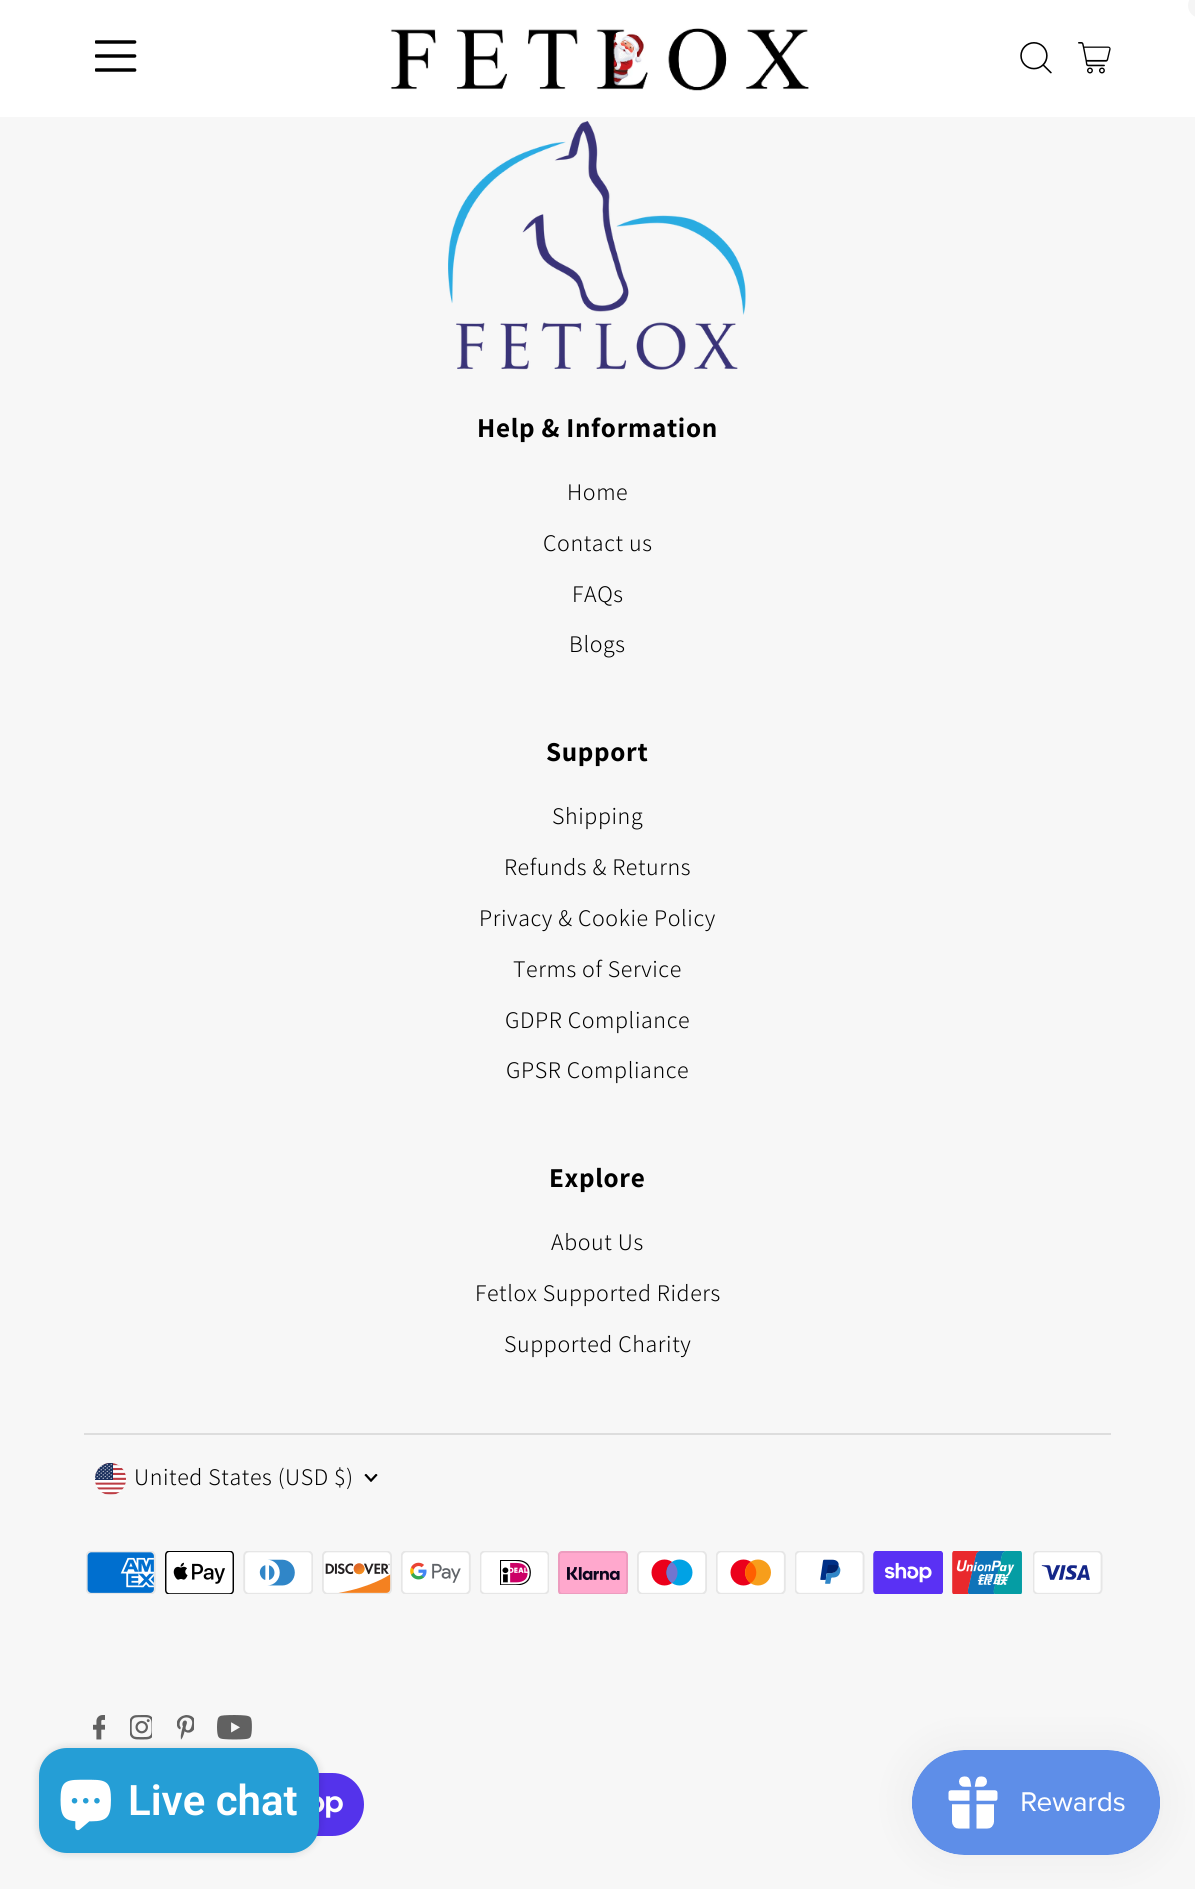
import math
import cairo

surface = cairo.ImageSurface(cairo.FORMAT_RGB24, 1195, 1889)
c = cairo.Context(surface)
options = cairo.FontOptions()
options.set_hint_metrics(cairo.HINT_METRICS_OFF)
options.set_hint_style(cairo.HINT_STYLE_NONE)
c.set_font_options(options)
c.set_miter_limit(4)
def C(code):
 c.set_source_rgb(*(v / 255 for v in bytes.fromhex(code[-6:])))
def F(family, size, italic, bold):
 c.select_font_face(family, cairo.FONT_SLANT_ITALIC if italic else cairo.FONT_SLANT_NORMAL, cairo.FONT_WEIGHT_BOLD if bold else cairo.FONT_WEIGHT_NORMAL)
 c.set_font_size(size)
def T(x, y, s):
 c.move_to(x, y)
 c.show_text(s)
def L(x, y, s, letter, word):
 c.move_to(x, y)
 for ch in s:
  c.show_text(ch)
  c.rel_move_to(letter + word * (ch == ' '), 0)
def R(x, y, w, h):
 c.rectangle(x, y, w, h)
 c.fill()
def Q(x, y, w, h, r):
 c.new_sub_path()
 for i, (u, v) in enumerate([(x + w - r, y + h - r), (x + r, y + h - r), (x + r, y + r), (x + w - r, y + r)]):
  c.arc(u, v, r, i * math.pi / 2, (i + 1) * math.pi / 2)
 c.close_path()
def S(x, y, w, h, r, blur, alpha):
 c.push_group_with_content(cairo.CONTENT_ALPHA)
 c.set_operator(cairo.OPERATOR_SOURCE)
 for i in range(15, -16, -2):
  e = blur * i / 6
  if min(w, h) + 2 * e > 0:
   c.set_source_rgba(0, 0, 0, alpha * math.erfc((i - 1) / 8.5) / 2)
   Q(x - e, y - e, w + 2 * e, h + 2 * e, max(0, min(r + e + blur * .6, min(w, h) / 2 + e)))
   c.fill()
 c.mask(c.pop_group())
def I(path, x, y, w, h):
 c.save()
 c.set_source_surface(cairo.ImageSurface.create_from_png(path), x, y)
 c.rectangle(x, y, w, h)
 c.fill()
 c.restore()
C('f7f7f7')
c.paint()
C('ffffff')
R(0,0,1195,117)
I('1.png',95,40,42,32)
I('2.png',390,28,419,63)
I('3.png',1020,42,32,32)
C('f5f5f5')
Q(1188,-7,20,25,12.5)
c.fill()
I('4.png',1078,42,33,32)
I('5.png',448,121,298,249)
F('Assistant',27.25,0,1)
C('000000')
L(477,437,'Help & Information',.7,0)
F('Assistant Light',23.75,0,0)
L(567,500,'Home',.6,0)
L(543,551,'Contact us',.6,0)
L(572,602,'FAQs',.6,0)
L(569,652,'Blogs',.6,0)
F('Assistant',27.25,0,1)
L(546,761,'Support',.7,0)
F('Assistant Light',23.75,0,0)
L(552,824,'Shipping',.6,0)
L(504,875,'Refunds & Returns',.6,0)
L(479,926,'Privacy & Cookie Policy',.6,0)
L(513,977,'Terms of Service',.6,0)
L(505,1028,'GDPR Compliance',.6,0)
L(506,1078,'GPSR Compliance',.6,0)
F('Assistant',27.25,0,1)
L(549,1187,'Explore',.7,0)
F('Assistant Light',23.75,0,0)
L(551,1250,'About Us',.6,0)
L(475,1301,'Fetlox Supported Riders',.6,0)
L(504,1352,'Supported Charity',.6,0)
C('dddddd')
R(84,1433,1027,2)
I('6.png',95,1463,31,32)
C('000000')
L(134,1485,'United States (USD $)',.6,0)
I('7.png',364,1474,14,8)
I('8.png',86,1551,70,43)
I('9.png',165,1551,69,43)
I('10.png',243,1551,70,43)
I('11.png',322,1551,70,43)
I('12.png',401,1551,70,43)
I('13.png',480,1551,69,43)
I('14.png',558,1551,70,43)
I('15.png',637,1551,70,43)
I('16.png',716,1551,70,43)
I('17.png',795,1551,70,43)
I('18.png',873,1551,70,43)
I('19.png',952,1551,70,43)
I('20.png',1033,1551,70,43)
I('21.png',93,1715,12,25)
I('22.png',130,1715,22,25)
I('23.png',177,1715,17,25)
I('24.png',217,1715,35,25)
C('5433eb')
Q(84,1773,280,63,31.5)
c.fill()
I('25.png',319,1796,24,22)
C('000000')
S(39,1748,280,105,28,4.5,.15)
C('259ed6')
Q(39,1748,280,105,28)
c.fill()
I('26.png',60,1779,51,52)
F('Roboto SemiBold',42,0,0)
C('ffffff')
T(128,1815,'Live chat')
C('000000')
S(912,1750,248,105,52.5,22,.05)
I('27.png',912,1750,248,105)
surface.write_to_png('o.png')
